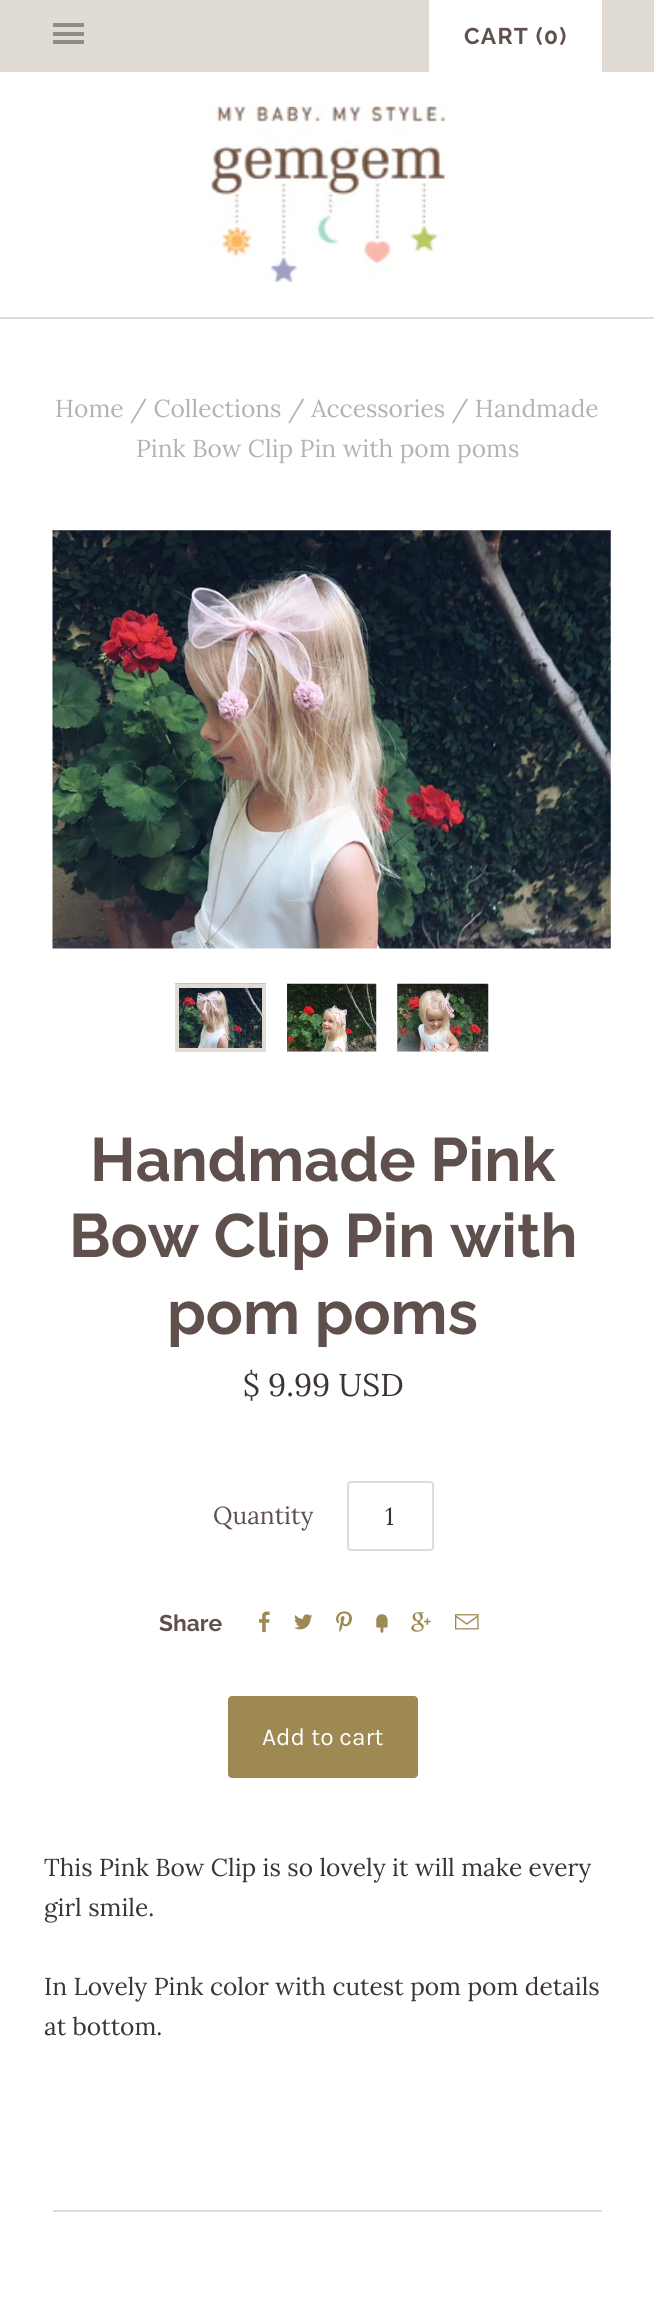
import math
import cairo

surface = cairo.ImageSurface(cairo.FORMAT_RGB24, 654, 2303)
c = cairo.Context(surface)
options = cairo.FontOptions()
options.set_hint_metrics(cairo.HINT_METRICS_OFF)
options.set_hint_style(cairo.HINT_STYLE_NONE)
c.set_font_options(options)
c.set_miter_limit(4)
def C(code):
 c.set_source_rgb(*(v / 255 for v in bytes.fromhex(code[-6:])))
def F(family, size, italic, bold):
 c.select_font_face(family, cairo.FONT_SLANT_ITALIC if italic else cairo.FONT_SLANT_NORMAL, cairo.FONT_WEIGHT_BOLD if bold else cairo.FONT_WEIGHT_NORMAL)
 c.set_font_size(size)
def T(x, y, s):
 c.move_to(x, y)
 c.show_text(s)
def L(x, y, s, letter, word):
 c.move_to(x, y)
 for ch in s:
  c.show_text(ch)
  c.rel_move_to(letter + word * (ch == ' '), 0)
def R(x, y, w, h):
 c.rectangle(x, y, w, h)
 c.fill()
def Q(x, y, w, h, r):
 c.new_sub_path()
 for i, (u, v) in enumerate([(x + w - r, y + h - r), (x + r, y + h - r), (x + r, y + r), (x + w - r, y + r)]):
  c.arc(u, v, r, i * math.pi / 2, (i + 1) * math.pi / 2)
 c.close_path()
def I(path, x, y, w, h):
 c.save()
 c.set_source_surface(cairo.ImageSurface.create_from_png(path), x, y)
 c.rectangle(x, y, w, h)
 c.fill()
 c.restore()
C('ffffff')
c.paint()
C('e0dcd3')
R(0,0,654,72)
C('8f8c82')
R(53,32,31,4)
R(53,23,31,4)
R(53,40,31,4)
C('ffffff')
R(429,0,173,72)
F('Raleway',22.75,0,1)
C('60504d')
L(464,44,'CART (0)',1.25,0)
C('e0dcd3')
R(0,317,654,2)
I('1.png',211,106,234,176)
F('Lora',24.5,0,0)
C('b3b3b3')
T(55,417,'Home / Collections / Accessories / Handmade')
T(136,457,'Pink Bow Clip Pin with pom poms')
I('2.png',52,530,559,419)
I('3.png',175,983,91,65)
c.rectangle(177,986,87,64)
C('e0dcd3')
c.set_line_width(4)
c.stroke()
I('4.png',287,983,90,69)
I('5.png',397,983,92,69)
F('Raleway',61.25,0,1)
C('60504d')
T(90,1181,'Handmade Pink')
T(69,1257,'Bow Clip Pin with')
T(167,1334,'pom poms')
F('Lora',31.5,0,0)
C('3c3434')
T(243,1396,'$ 9.99 USD')
F('Lora',24.5,0,0)
C('60504d')
T(213,1524,'Quantity')
Q(348,1482,85,68,3)
C('e0dcd3')
c.set_line_width(2)
c.stroke()
C('3c3434')
T(385,1525,'1')
F('Raleway',22.75,0,1)
C('60504d')
T(159,1631,'Share')
I('6.png',259,1611,11,22)
I('7.png',294,1614,19,16)
I('8.png',336,1611,16,21)
I('9.png',376,1614,12,19)
I('10.png',411,1612,20,20)
I('11.png',455,1614,24,16)
C('9e8953')
Q(228,1696,190,82,4)
c.fill()
F('Karla',24.5,0,0)
C('ffffff')
T(262,1745,'Add to cart')
F('Lora',24.5,0,0)
C('3c3434')
T(44,1876,'This Pink Bow Clip is so lovely it will make every')
T(44,1916,'girl smile.')
T(44,1995,'In Lovely Pink color with cutest pom pom details')
T(44,2035,'at bottom.')
C('e0dcd3')
R(53,2210,549,2)
surface.write_to_png('o.png')
